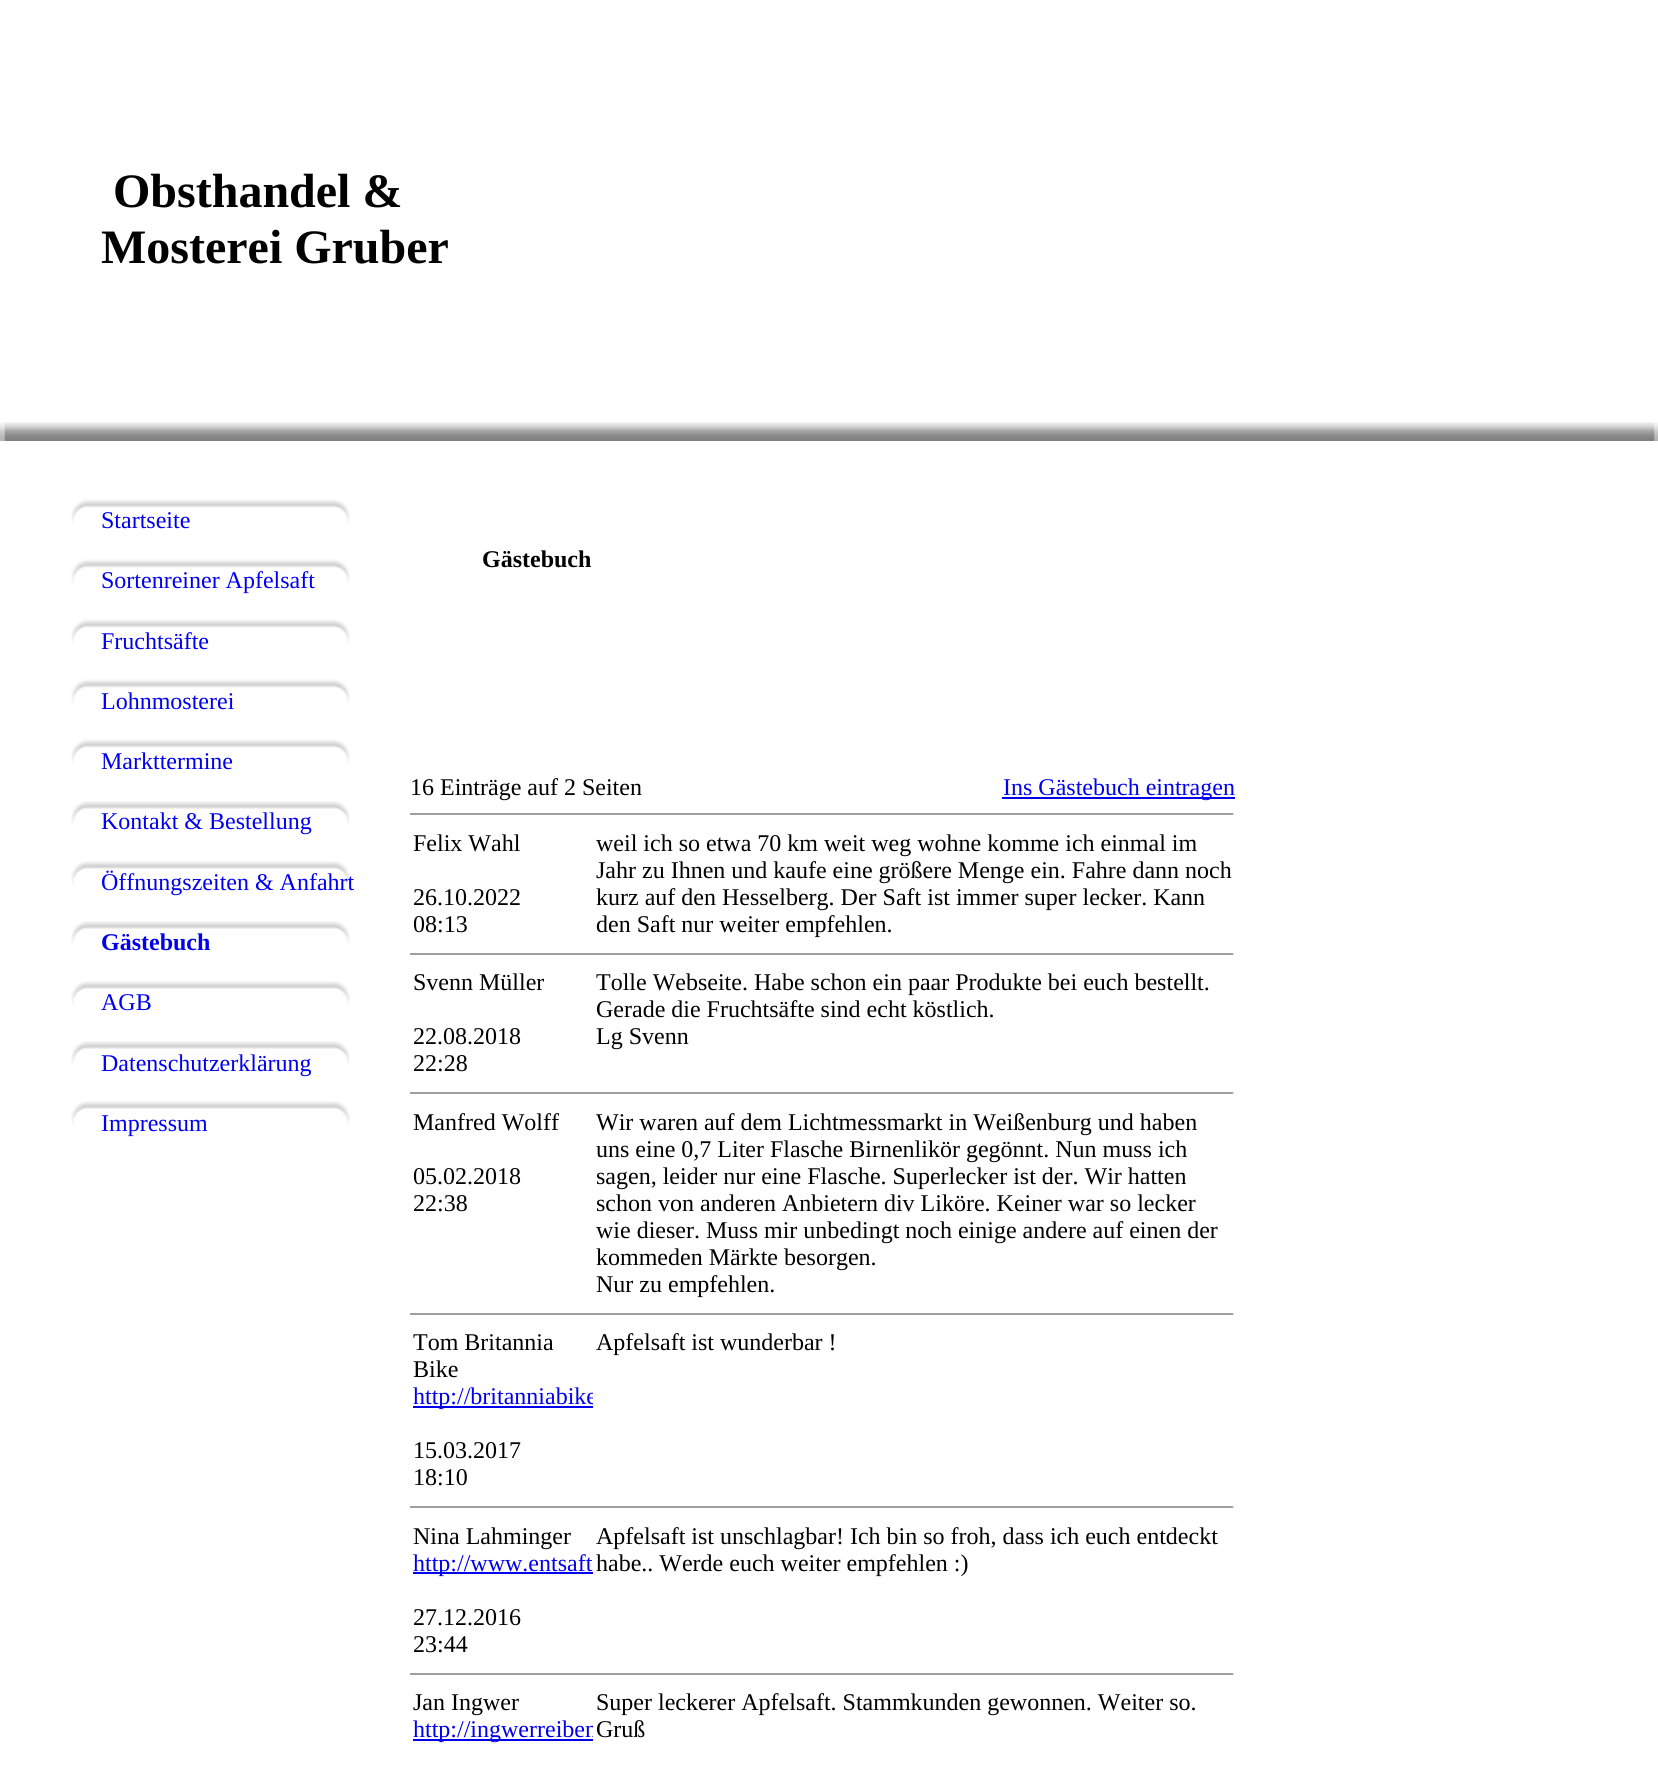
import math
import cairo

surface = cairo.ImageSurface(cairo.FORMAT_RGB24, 1658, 1778)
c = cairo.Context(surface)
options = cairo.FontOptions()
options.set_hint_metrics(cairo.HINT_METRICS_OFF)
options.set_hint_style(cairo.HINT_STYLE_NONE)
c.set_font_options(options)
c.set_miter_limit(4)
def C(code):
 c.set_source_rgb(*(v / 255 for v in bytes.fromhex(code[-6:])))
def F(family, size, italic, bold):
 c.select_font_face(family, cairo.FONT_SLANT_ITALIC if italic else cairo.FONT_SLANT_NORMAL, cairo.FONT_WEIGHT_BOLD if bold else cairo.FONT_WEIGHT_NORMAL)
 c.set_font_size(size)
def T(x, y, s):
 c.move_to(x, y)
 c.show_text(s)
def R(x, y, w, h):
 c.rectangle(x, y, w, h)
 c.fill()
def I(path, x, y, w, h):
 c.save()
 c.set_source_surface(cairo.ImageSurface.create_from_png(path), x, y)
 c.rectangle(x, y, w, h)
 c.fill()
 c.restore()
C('ffffff')
c.paint()
I('1.png',0,422,1658,19)
F('Liberation Serif',48,0,1)
C('000000')
T(113,207,'Obsthandel &')
T(101,263,'Mosterei Gruber')
I('2.png',4,422,1651,19)
I('3.png',71,499,279,26)
F('Liberation Serif',24,0,0)
C('0000ee')
T(101,528,'Startseite')
I('3.png',71,559,279,26)
T(101,588,'Sortenreiner Apfelsaft')
I('3.png',71,619,279,26)
T(101,649,'Fruchtsäfte')
I('3.png',71,679,279,26)
T(101,709,'Lohnmosterei')
I('3.png',71,739,279,26)
T(101,769,'Markttermine')
I('4.png',71,801,279,24)
T(101,829,'Kontakt & Bestellung')
I('4.png',71,861,279,24)
T(101,890,'Öffnungszeiten & Anfahrt')
I('5.png',71,921,279,23)
F('Liberation Serif',24,0,1)
T(101,950,'Gästebuch')
I('4.png',71,981,279,24)
F('Liberation Serif',24,0,0)
T(101,1010,'AGB')
I('4.png',71,1041,279,24)
T(101,1071,'Datenschutzerklärung')
I('4.png',71,1101,279,24)
T(101,1131,'Impressum')
F('Liberation Serif',24,0,1)
C('000000')
T(482,567,'Gästebuch')
F('Liberation Serif',24,0,0)
T(410,795,'16 Einträge auf 2 Seiten')
C('0000ee')
R(1002,797,233,2)
T(1003,795,'Ins Gästebuch eintragen')
C('9f9f9f')
R(410,813,825,2)
C('eeeeee')
R(1233,813,2,2)
C('000000')
T(413,851,'Felix Wahl')
T(413,905,'26.10.2022')
T(413,932,'08:13')
T(596,851,'weil ich so etwa 70 km weit weg wohne komme ich einmal im')
T(596,878,'Jahr zu Ihnen und kaufe eine größere Menge ein. Fahre dann noch')
T(596,905,'kurz auf den Hesselberg. Der Saft ist immer super lecker. Kann')
T(596,932,'den Saft nur weiter empfehlen.')
C('9f9f9f')
R(410,953,825,2)
C('eeeeee')
R(1233,953,2,2)
C('000000')
T(413,990,'Svenn Müller')
T(413,1044,'22.08.2018')
T(413,1071,'22:28')
T(596,990,'Tolle Webseite. Habe schon ein paar Produkte bei euch bestellt.')
T(596,1017,'Gerade die Fruchtsäfte sind echt köstlich.')
T(596,1044,'Lg Svenn')
C('9f9f9f')
R(410,1092,825,2)
C('eeeeee')
R(1233,1092,2,2)
C('000000')
T(413,1130,'Manfred Wolff')
T(413,1184,'05.02.2018')
T(413,1211,'22:38')
T(596,1130,'Wir waren auf dem Lichtmessmarkt in Weißenburg und haben')
T(596,1157,'uns eine 0,7 Liter Flasche Birnenlikör gegönnt. Nun muss ich')
T(596,1184,'sagen, leider nur eine Flasche. Superlecker ist der. Wir hatten')
T(596,1211,'schon von anderen Anbietern div Liköre. Keiner war so lecker')
T(596,1238,'wie dieser. Muss mir unbedingt noch einige andere auf einen der')
T(596,1265,'kommeden Märkte besorgen.')
T(596,1292,'Nur zu empfehlen.')
C('9f9f9f')
R(410,1313,825,2)
C('eeeeee')
R(1233,1313,2,2)
C('000000')
T(413,1350,'Tom Britannia')
T(413,1377,'Bike')
C('0000ee')
R(413,1406,180,2)
c.save()
c.rectangle(413,1383,180,27)
c.clip()
T(413,1404,'http://britanniabike')
c.restore()
C('000000')
T(413,1458,'15.03.2017')
T(413,1485,'18:10')
T(596,1350,'Apfelsaft ist wunderbar !')
C('9f9f9f')
R(410,1506,825,2)
C('eeeeee')
R(1233,1506,2,2)
C('000000')
T(413,1544,'Nina Lahminger')
C('0000ee')
R(413,1572,180,2)
T(413,1571,'http://www.entsaft')
C('000000')
T(413,1625,'27.12.2016')
T(413,1652,'23:44')
T(596,1544,'Apfelsaft ist unschlagbar! Ich bin so froh, dass ich euch entdeckt')
T(596,1571,'habe.. Werde euch weiter empfehlen :)')
C('9f9f9f')
R(410,1673,825,2)
C('eeeeee')
R(1233,1673,2,2)
C('000000')
T(413,1710,'Jan Ingwer')
C('0000ee')
R(413,1739,180,2)
c.save()
c.rectangle(413,1716,180,27)
c.clip()
T(413,1737,'http://ingwerreiben')
c.restore()
C('000000')
T(596,1710,'Super leckerer Apfelsaft. Stammkunden gewonnen. Weiter so.')
T(596,1737,'Gruß')
surface.write_to_png('o.png')
